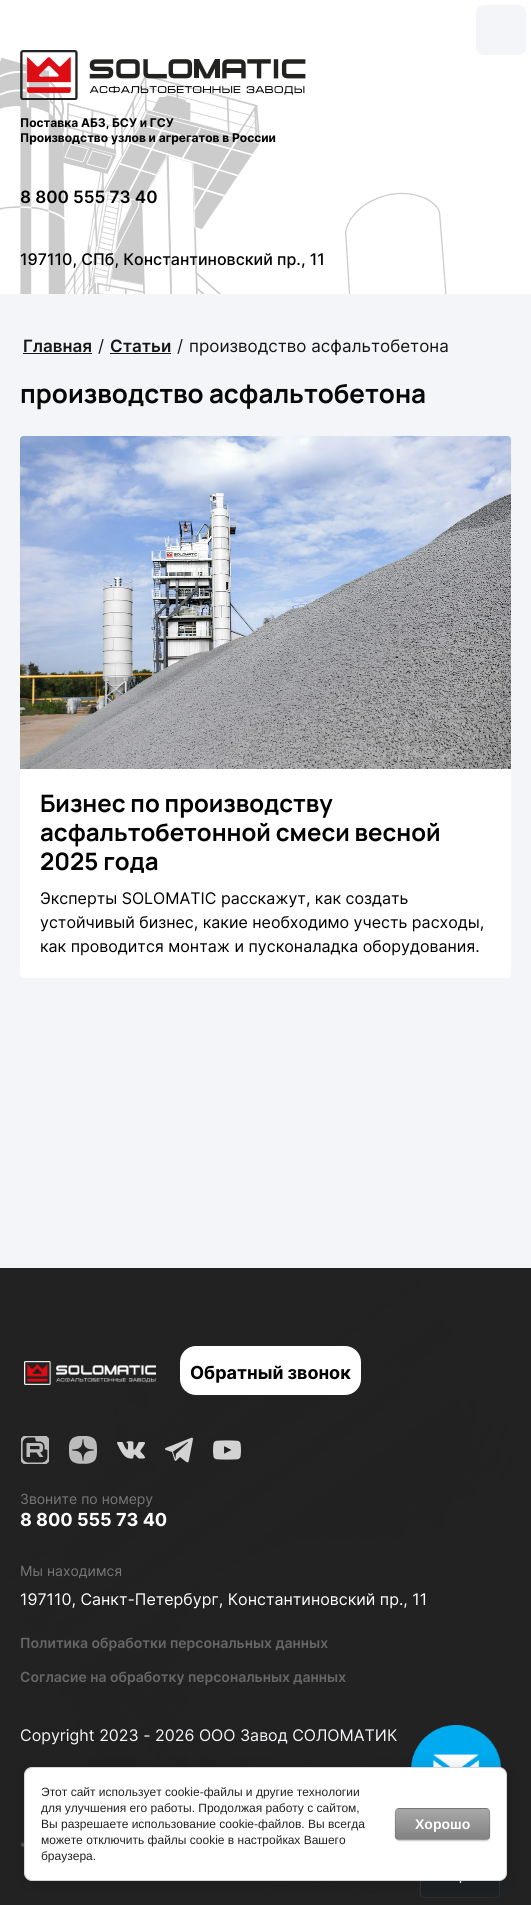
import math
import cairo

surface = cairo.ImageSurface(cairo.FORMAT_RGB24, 531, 1905)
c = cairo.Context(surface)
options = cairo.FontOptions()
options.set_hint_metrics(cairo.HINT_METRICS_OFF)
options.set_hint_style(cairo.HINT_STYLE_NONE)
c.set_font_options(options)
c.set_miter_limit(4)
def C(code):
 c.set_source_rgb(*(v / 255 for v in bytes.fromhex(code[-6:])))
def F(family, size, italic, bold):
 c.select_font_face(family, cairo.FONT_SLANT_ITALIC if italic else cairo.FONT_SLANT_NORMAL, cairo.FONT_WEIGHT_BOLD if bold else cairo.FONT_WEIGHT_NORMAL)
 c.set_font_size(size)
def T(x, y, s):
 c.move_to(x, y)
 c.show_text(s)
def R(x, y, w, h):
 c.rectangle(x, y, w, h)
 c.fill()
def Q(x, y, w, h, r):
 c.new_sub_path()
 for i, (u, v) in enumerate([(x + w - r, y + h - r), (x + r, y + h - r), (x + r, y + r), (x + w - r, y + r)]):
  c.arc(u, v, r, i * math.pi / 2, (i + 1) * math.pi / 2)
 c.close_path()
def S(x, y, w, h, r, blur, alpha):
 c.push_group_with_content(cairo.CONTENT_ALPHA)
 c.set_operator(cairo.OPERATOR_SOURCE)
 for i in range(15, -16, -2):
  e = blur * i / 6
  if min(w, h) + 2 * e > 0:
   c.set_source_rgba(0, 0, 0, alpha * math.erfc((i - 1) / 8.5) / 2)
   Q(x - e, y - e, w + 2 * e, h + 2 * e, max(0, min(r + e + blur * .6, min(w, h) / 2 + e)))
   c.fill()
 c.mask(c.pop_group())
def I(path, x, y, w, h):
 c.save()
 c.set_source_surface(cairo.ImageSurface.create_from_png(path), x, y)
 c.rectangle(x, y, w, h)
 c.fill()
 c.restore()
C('ffffff')
c.paint()
C('f4f5f8')
Q(476,5,50,50,8)
c.fill()
I('1.png',0,58,447,236)
I('2.png',20,50,286,50)
F('Inter',12,0,1)
C('000000')
T(20,127,'Поставка АБЗ, БСУ и ГСУ')
T(20,142,'Производство узлов и агрегатов в России')
F('Inter SemiBold',17,0,0)
T(20,203,'8 800 555 73 40')
F('Inter Medium',16,0,0)
T(20,265,'197110, СПб, Константиновский пр., 11')
C('f4f5f8')
R(0,294,531,974)
F('Inter SemiBold',17,0,0)
C('161616')
T(23,352,'Главная')
R(23,353,69,1)
F('Inter',17,0,0)
T(98,352,'/')
F('Inter SemiBold',17,0,0)
T(110,352,'Статьи')
R(110,353,61,1)
F('Inter',17,0,0)
T(177,352,'/')
T(189,352,'производство асфальтобетона')
F('Manrope',26,0,1)
C('080808')
T(20,403,'производство асфальтобетона')
C('ffffff')
Q(20,436,491,542,4)
c.fill()
I('3.png',20,436,491,333)
F('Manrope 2',24,0,1)
C('000000')
T(40,812,'Бизнес по производству')
T(40,841,'асфальтобетонной смеси весной')
T(40,870,'2025 года')
F('Inter',16,0,0)
T(40,904,'Эксперты SOLOMATIC расскажут, как создать')
T(40,928,'устойчивый бизнес, какие необходимо учесть расходы,')
T(40,952,'как проводится монтаж и пусконаладка оборудования.')
I('4.png',0,1268,531,637)
I('5.png',24,1361,132,24)
C('ffffff')
R(190,1356,161,29)
Q(185,1351,171,39,11)
c.set_line_width(10)
c.stroke()
F('Inter',18,0,1)
C('000000')
T(190,1379,'Обратный звонок')
I('6.png',21,1436,28,28)
I('7.png',69,1436,28,28)
I('8.png',117,1441,28,18)
I('9.png',165,1437,28,26)
I('10.png',213,1440,28,20)
F('Inter',14,0,0)
C('767676')
T(20,1504,'Звоните по номеру')
F('Inter',18,0,1)
C('ffffff')
T(20,1526,'8 800 555 73 40')
F('Inter',14,0,0)
C('767676')
T(20,1576,'Мы находимся')
F('Inter',16,0,0)
C('ffffff')
T(20,1605,'197110, Санкт-Петербург, Константиновский пр., 11')
F('Inter SemiBold',14,0,0)
C('666666')
T(20,1648,'Политика обработки персональных данных')
T(20,1682,'Согласие на обработку персональных данных')
C('1d2124')
Q(420,1838,80,60,4)
c.fill()
c.new_path()
c.move_to(498.5,1839.5)
c.curve_to(501,1842,499.5,1850,499.5,1850.5)
c.line_to(499.5,1885.5)
c.curve_to(499.5,1900.5,500,1897.5,484,1897.5)
c.line_to(424,1897.5)
c.line_to(421.5,1896.5)
c.set_source_rgba(0.667,0.667,0.667,0.1)
c.set_line_width(1)
c.stroke()
c.new_path()
c.move_to(421.5,1896.5)
c.curve_to(419,1894,420.5,1886,420.5,1885.5)
c.line_to(420.5,1850.5)
c.curve_to(420.5,1835.5,420,1838.5,436,1838.5)
c.line_to(496,1838.5)
c.line_to(498.5,1839.5)
c.set_source_rgba(1,1,1,0.1)
c.stroke()
I('11.png',459,1881,3,2)
F('Inter',16,0,0)
C('f4f5f8')
T(20,1741,'Copyright 2023 - 2026 OOO Завод СОЛОМАТИК')
F('Inter',12,0,0)
C('666666')
T(20,1851,'*')
I('12.png',411,1725,90,43)
C('000000')
S(26,1769,483,114,8,9,.14)
C('ffffff')
Q(24.5,1767.5,482,113,7.5)
c.fill_preserve()
C('d6d6d6')
c.stroke()
F('Liberation Sans',12,0,0)
C('212121')
T(41,1796,'Этот сайт использует cookie-файлы и другие технологии')
T(41,1812,'для улучшения его работы. Продолжая работу с сайтом,')
T(41,1828,'Вы разрешаете использование cookie-файлов. Вы всегда')
T(41,1844,'можете отключить файлы cookie в настройках Вашего')
T(41,1860,'браузера.')
C('000000')
S(395,1809,95,32,4,.5,.2)
c.save()
Q(395,1808,95,32,4)
c.clip()
gradient = cairo.LinearGradient(443,1779,443,1809)
gradient.add_color_stop_rgba(0,0.659,0.659,0.659,1)
gradient.add_color_stop_rgba(1,0.51,0.51,0.51,1)
c.set_source(gradient)
R(395,1808,95,1)
gradient = cairo.LinearGradient(443,1809,443,1839)
gradient.add_color_stop_rgba(0,0.659,0.659,0.659,1)
gradient.add_color_stop_rgba(1,0.51,0.51,0.51,1)
c.set_source(gradient)
R(395,1809,95,30)
gradient = cairo.LinearGradient(443,1839,443,1869)
gradient.add_color_stop_rgba(0,0.659,0.659,0.659,1)
gradient.add_color_stop_rgba(1,0.51,0.51,0.51,1)
c.set_source(gradient)
R(395,1839,95,1)
c.restore()
Q(395.5,1808.5,94,31,3.5)
c.set_source_rgba(0,0,0,0.1)
c.stroke()
F('Liberation Sans',14,0,1)
C('ffffff')
T(415,1829,'Хорошо')
surface.write_to_png('o.png')
